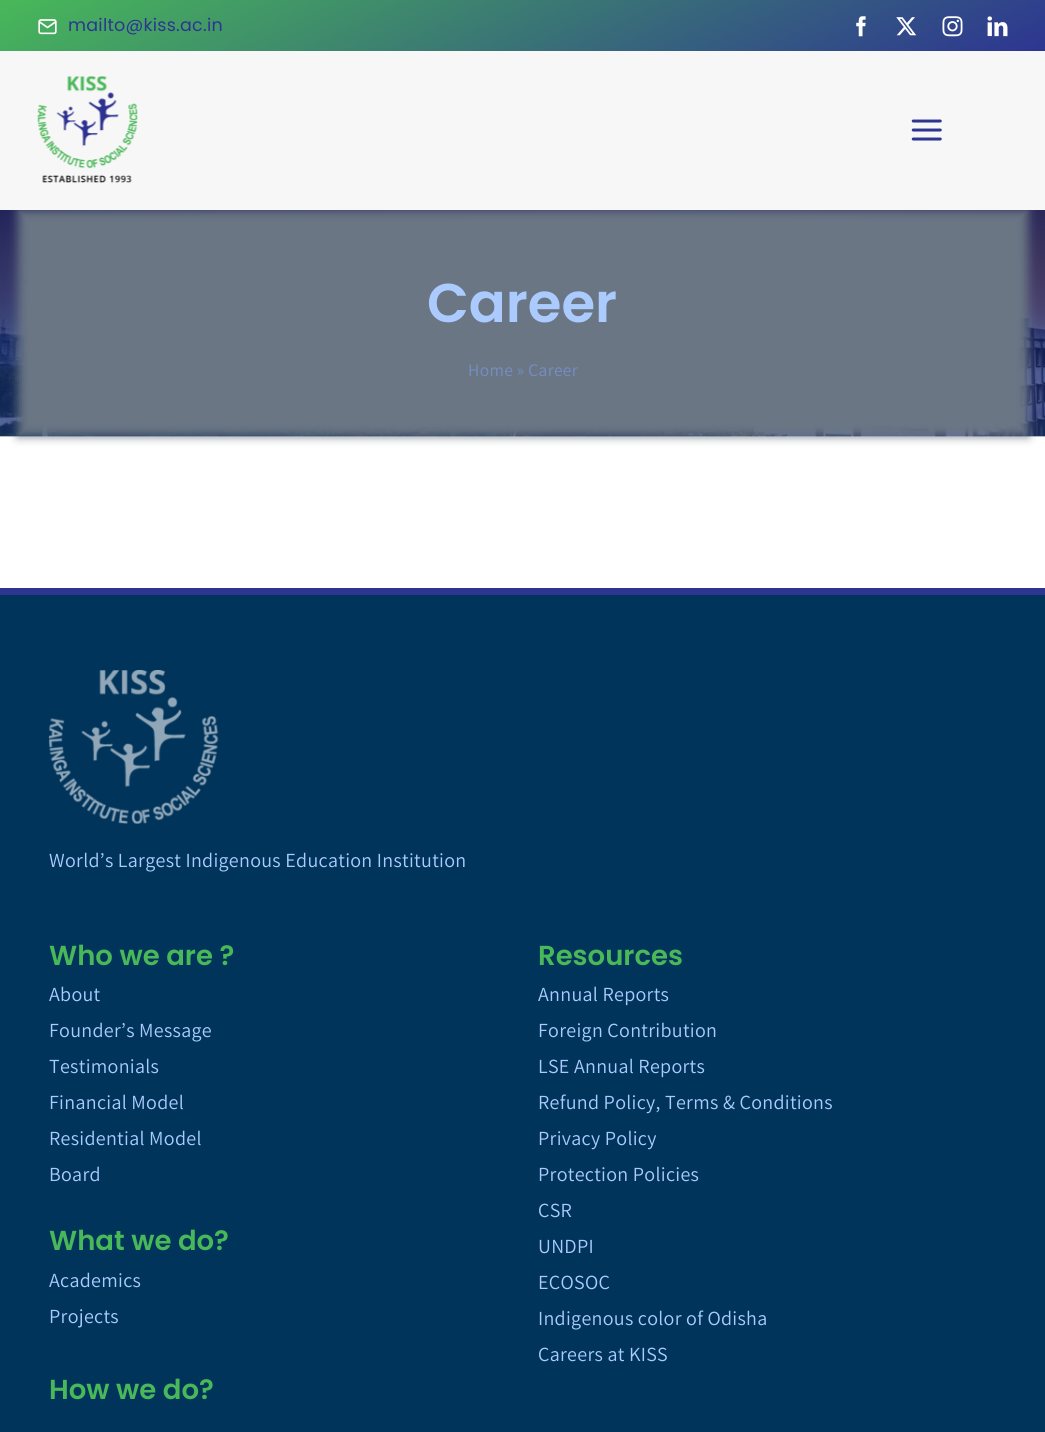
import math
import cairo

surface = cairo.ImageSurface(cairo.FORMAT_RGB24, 1045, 1432)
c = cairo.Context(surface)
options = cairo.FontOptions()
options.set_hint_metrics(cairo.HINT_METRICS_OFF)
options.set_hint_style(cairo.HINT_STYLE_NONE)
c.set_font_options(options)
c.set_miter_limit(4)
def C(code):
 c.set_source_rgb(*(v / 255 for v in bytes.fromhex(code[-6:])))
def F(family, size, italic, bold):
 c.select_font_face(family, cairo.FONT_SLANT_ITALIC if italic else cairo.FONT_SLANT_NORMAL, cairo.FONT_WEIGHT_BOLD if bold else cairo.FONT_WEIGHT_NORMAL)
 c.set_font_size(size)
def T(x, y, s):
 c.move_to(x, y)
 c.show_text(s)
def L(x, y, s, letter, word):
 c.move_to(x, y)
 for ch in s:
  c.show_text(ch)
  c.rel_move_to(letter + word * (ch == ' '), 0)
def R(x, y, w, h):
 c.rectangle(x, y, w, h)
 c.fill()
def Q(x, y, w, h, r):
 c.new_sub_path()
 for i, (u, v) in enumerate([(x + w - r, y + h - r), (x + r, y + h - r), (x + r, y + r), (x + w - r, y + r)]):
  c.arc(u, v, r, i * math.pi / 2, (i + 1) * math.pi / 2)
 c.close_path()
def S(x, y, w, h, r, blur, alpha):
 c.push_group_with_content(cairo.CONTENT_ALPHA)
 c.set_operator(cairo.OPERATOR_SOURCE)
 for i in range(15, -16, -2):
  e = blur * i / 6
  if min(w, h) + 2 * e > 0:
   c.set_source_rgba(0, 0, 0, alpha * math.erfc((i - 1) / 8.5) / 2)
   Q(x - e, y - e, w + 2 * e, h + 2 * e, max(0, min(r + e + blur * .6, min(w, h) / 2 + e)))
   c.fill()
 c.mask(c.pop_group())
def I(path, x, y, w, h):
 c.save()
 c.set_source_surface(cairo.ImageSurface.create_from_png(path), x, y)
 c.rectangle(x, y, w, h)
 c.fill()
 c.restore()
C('ffffff')
c.paint()
gradient = cairo.LinearGradient(412,-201,633,252)
gradient.add_color_stop_rgba(0,0.282,0.722,0.349,1)
gradient.add_color_stop_rgba(1,0.176,0.208,0.569,1)
c.set_source(gradient)
R(0,0,1045,51)
I('1.png',38,19,19,16)
F('Poppins',17.5,0,0)
C('2d3591')
L(68,31,'mailto@kiss.ac.in',.25,0)
I('2.png',856,16,10,21)
I('3.png',896,17,21,19)
I('4.png',942,16,21,21)
I('5.png',987,16,21,21)
I('8.png',0,210,1045,227)
C('6a7684')
S(18,210,1010,226,0,5,1)
C('f7f7f7')
R(0,51,1045,159)
I('6.png',37,76,101,107)
I('7.png',911,119,31,22)
F('Poppins SemiBold',54.5,0,0)
C('abcbff')
T(427,322,'Career')
F('Assistant',17.5,0,0)
C('748ec4')
L(468,376,'Home » Career',.3,0)
C('00345b')
R(0,595,1045,837)
C('2d3591')
R(0,588,1045,7)
I('9.png',48,670,171,154)
F('Assistant',20,0,0)
C('abcbff')
L(49,867,'World’s Largest Indigenous Education Institution',.3,0)
F('Poppins SemiBold',27.5,0,0)
C('48b859')
T(49,965,'Who we are ?')
F('Assistant',20,0,0)
C('abcbff')
L(49,1001,'About',.3,0)
L(49,1037,'Founder’s Message',.3,0)
L(49,1073,'Testimonials',.3,0)
L(49,1109,'Financial Model',.3,0)
L(49,1145,'Residential Model',.3,0)
L(49,1181,'Board',.3,0)
F('Poppins SemiBold',27.5,0,0)
C('48b859')
T(49,1250,'What we do?')
F('Assistant',20,0,0)
C('abcbff')
L(49,1287,'Academics',.3,0)
L(49,1323,'Projects',.3,0)
F('Poppins SemiBold',27.5,0,0)
C('48b859')
T(49,1399,'How we do?')
T(538,965,'Resources')
F('Assistant',20,0,0)
C('abcbff')
L(538,1001,'Annual Reports',.3,0)
L(538,1037,'Foreign Contribution',.3,0)
L(538,1073,'LSE Annual Reports',.3,0)
L(538,1109,'Refund Policy, Terms & Conditions',.3,0)
L(538,1145,'Privacy Policy',.3,0)
L(538,1181,'Protection Policies',.3,0)
L(538,1217,'CSR',.3,0)
L(538,1253,'UNDPI',.3,0)
L(538,1289,'ECOSOC',.3,0)
L(538,1325,'Indigenous color of Odisha',.3,0)
L(538,1361,'Careers at KISS',.3,0)
surface.write_to_png('o.png')
